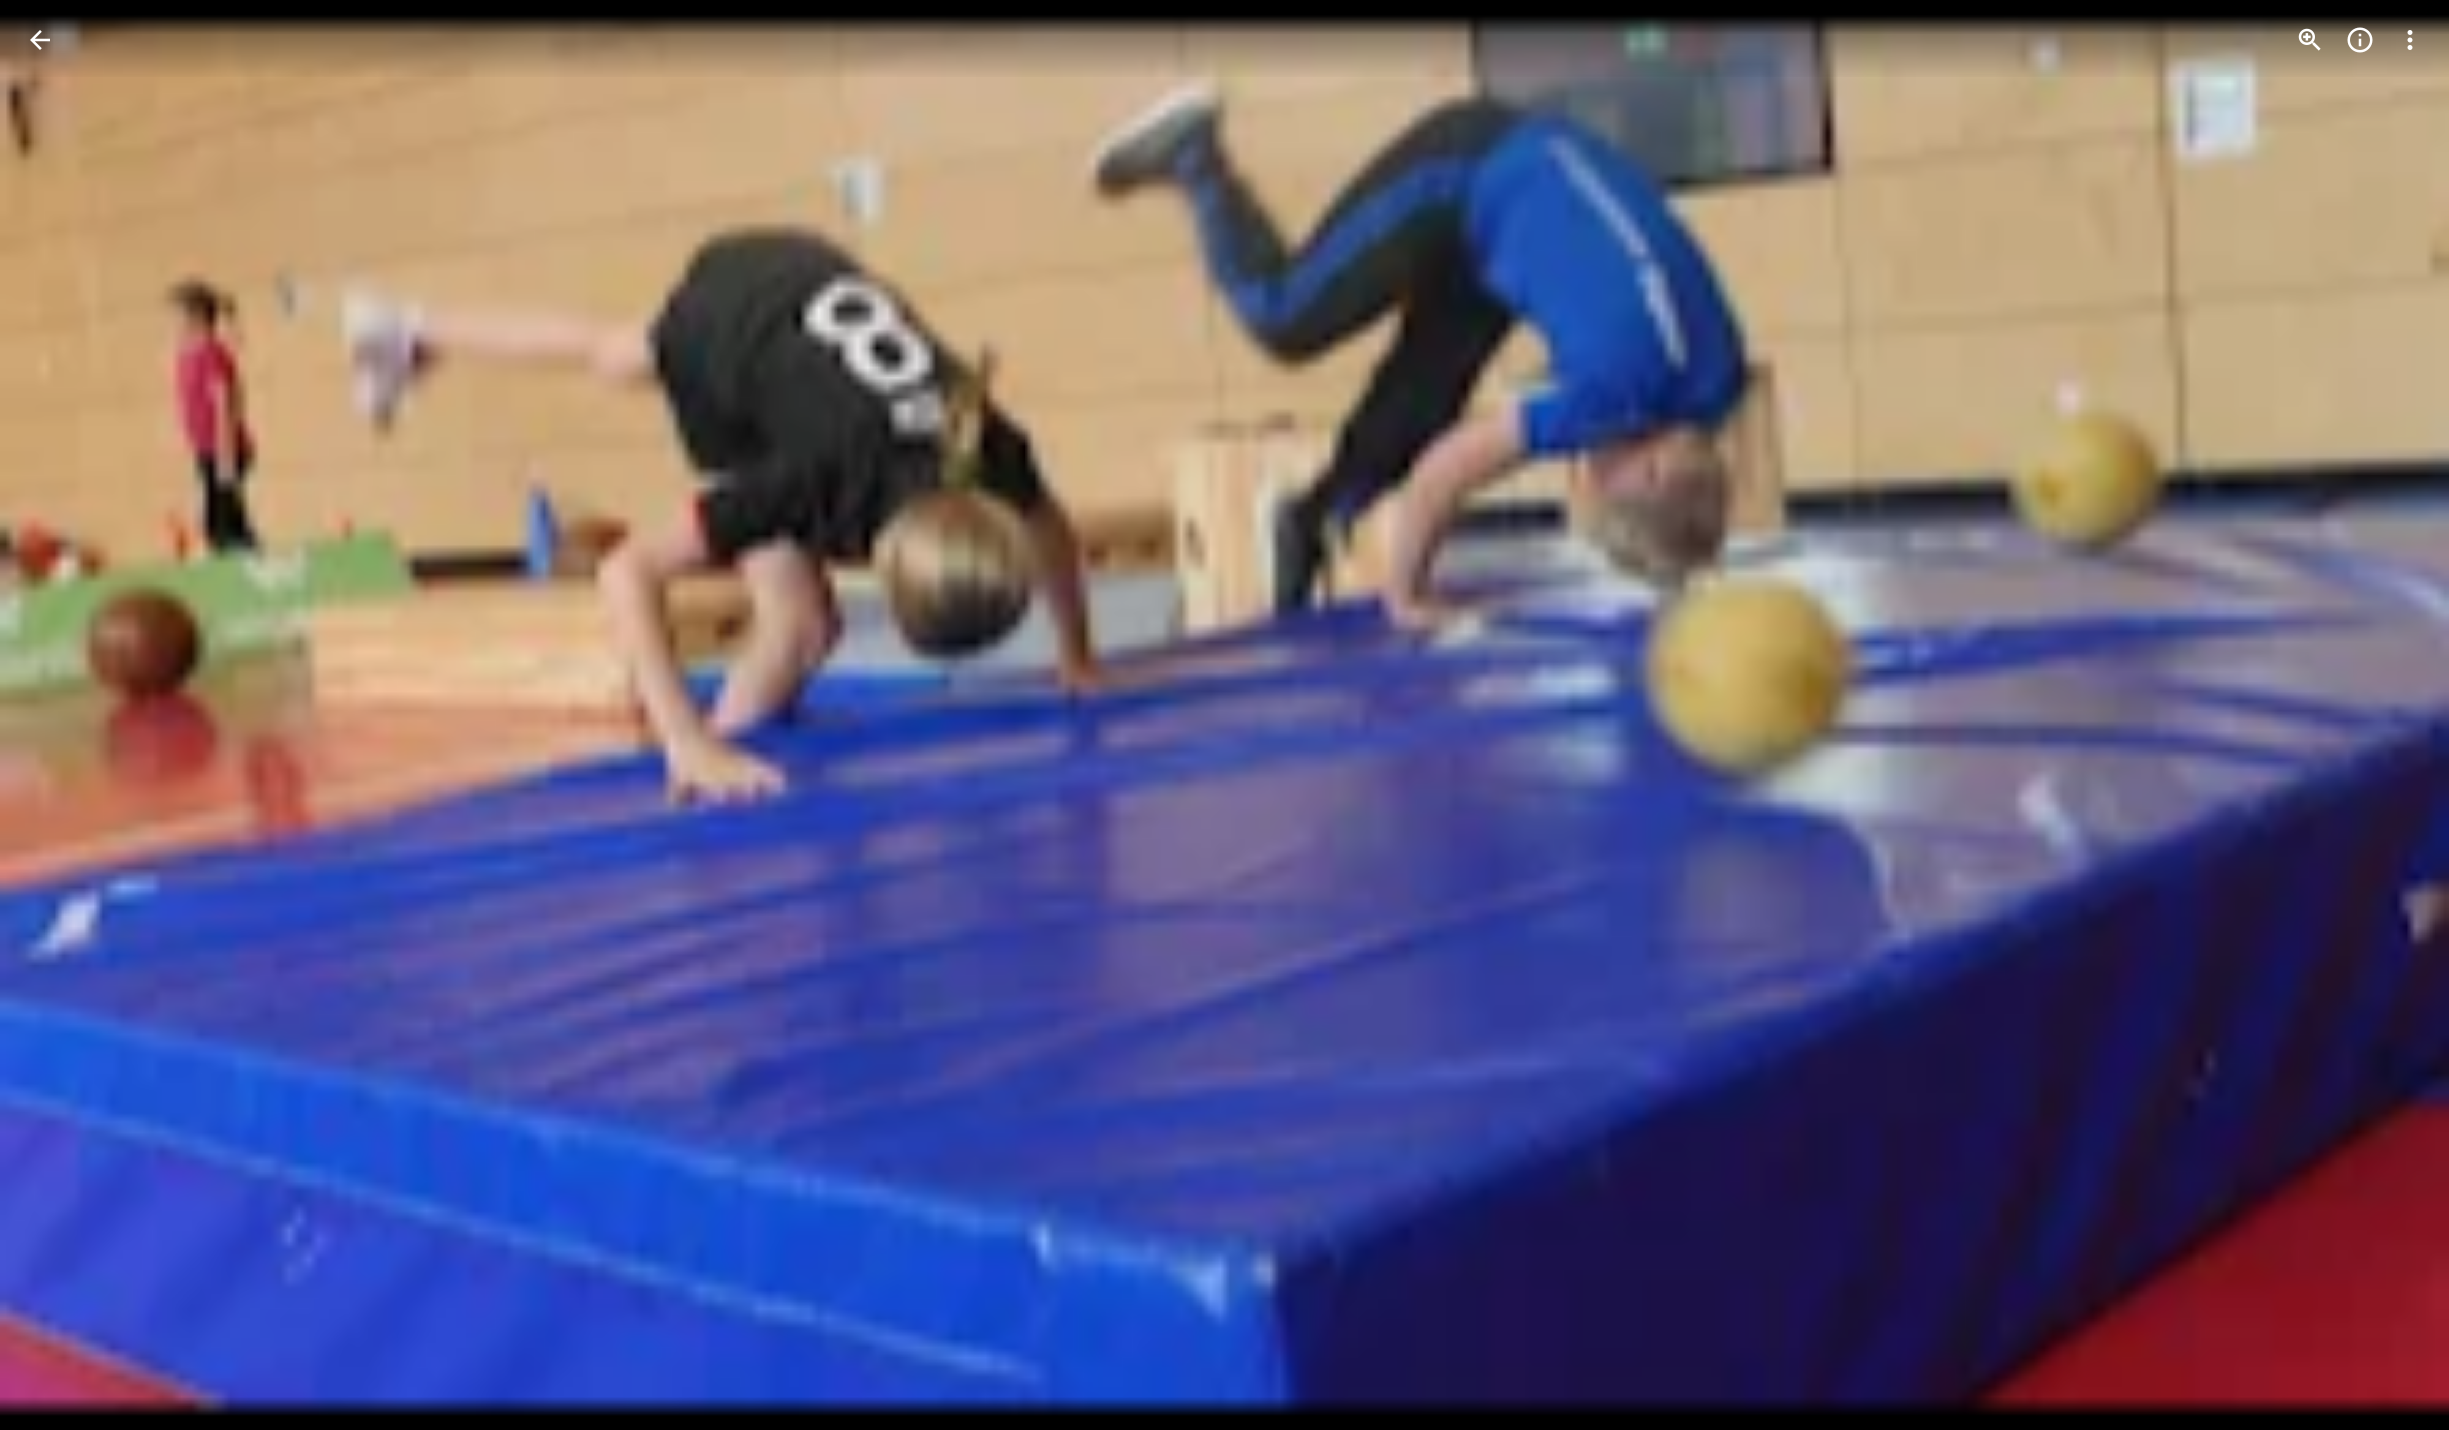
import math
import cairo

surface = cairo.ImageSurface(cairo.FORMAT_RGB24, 2449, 1430)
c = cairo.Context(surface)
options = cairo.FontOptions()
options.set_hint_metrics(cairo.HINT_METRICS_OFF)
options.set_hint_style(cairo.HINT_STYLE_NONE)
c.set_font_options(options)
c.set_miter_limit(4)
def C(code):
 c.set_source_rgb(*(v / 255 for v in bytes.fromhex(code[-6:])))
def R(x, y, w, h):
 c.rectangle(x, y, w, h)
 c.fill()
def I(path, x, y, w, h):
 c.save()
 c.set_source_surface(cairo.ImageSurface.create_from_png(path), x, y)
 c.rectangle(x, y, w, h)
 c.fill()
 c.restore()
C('000000')
c.paint()
I('1.png',0,15,2449,1401)
gradient = cairo.LinearGradient(1225,0,1225,80)
gradient.add_color_stop_rgba(0,0,0,0,.6)
gradient.add_color_stop_rgba(1,0,0,0,0)
c.set_source(gradient)
R(0,15,2449,62)
I('2.png',30,30,20,20)
I('3.png',2298,28,23,23)
I('4.png',2347,27,26,26)
I('5.png',2407,30,6,20)
surface.write_to_png('o.png')
